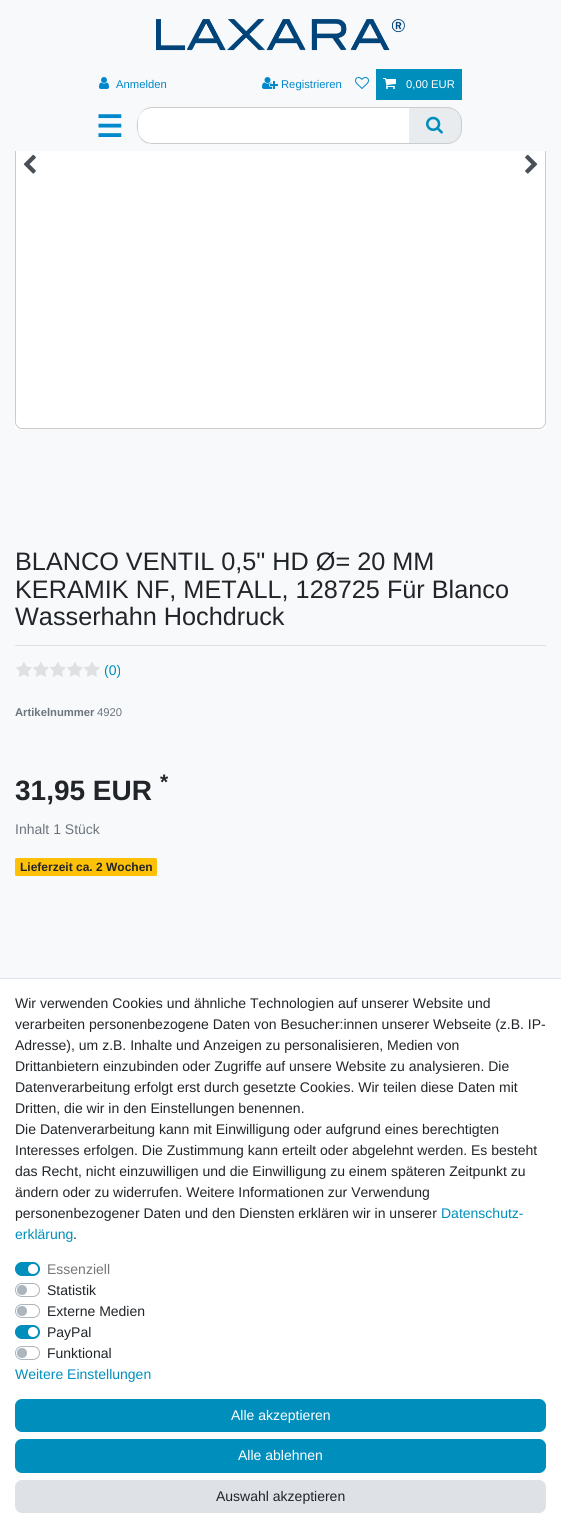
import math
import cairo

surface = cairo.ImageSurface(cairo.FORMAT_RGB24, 561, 1534)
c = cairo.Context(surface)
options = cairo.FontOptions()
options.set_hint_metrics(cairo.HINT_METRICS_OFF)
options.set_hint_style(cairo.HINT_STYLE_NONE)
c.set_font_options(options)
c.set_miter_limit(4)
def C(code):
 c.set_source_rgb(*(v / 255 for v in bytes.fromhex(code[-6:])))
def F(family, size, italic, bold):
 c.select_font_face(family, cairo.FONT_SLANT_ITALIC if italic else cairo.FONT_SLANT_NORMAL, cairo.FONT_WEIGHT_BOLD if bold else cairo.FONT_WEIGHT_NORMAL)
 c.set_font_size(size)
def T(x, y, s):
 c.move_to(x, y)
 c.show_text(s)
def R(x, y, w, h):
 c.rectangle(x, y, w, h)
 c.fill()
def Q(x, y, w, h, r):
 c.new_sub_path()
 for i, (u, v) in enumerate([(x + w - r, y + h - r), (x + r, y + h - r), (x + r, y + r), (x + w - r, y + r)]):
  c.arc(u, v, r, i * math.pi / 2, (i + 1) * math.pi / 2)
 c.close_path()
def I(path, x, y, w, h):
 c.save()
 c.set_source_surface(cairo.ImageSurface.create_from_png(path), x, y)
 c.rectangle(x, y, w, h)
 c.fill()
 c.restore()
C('f8f9fa')
c.paint()
C('ffffff')
R(15,151,531,278)
Q(15.5,-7.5,530,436,6.5)
C('cccccc')
c.set_line_width(1)
c.stroke()
C('f8f9fa')
R(15,0,531,151)
I('1.png',156,19,249,32)
I('2.png',99,77,10,12)
F('Liberation Sans',11.25,0,0)
C('0088cc')
T(116,88,'Anmelden')
I('3.png',262,77,16,12)
T(281,88,'Registrieren')
I('4.png',355,77,14,12)
C('008ebd')
R(376,69,86,31)
I('5.png',383,78,13,11)
C('ffffff')
T(406,88,'0,00 EUR')
F('DejaVu Sans',30,0,1)
C('0088cc')
T(96,137,'☰')
C('ffffff')
c.new_path()
c.move_to(152,107)
c.line_to(409,107)
c.line_to(409,144)
c.line_to(152,144)
c.curve_to(143.5,144,137,137.5,137,129)
c.line_to(137,122)
c.curve_to(137,113.5,143.5,107,152,107)
c.close_path()
c.fill()
C('cccccc')
c.set_fill_rule(cairo.FILL_RULE_EVEN_ODD)
c.new_path()
c.move_to(152,107)
c.line_to(409,107)
c.line_to(409,144)
c.line_to(152,144)
c.line_to(146,143)
c.curve_to(132,137,134,107,152,107)
c.close_path()
c.move_to(152,108)
c.line_to(409,108)
c.line_to(409,143)
c.line_to(152,143)
c.curve_to(144,143,138,137,138,129)
c.line_to(138,122)
c.curve_to(138,114,144,108,152,108)
c.close_path()
c.fill()
C('e9ecef')
c.new_path()
c.move_to(409,107)
c.line_to(447,107)
c.curve_to(455.5,107,462,113.5,462,122)
c.line_to(462,129)
c.curve_to(462,137.5,455.5,144,447,144)
c.line_to(409,144)
c.close_path()
c.fill()
C('cccccc')
c.new_path()
c.move_to(409,107)
c.line_to(447,107)
c.curve_to(455,107,462,114,462,122)
c.line_to(462,129)
c.curve_to(462,137,455,144,447,144)
c.line_to(409,144)
c.close_path()
c.move_to(409,108)
c.line_to(447,108)
c.curve_to(455,108,461,114,461,122)
c.line_to(461,129)
c.curve_to(461,137,455,143,447,143)
c.line_to(409,143)
c.close_path()
c.fill()
I('6.png',426,116,17,18)
I('7.png',23,154,13,20)
I('8.png',525,154,13,20)
F('Liberation Sans',25.25,0,0)
C('212529')
T(15,570,'BLANCO VENTIL 0,5" HD Ø= 20 MM')
T(15,598,'KERAMIK NF, METALL, 128725 Für Blanco')
T(15,625,'Wasserhahn Hochdruck')
C('dee2e6')
R(15,645,531,1)
I('9.png',16,662,16,15)
I('9.png',33,662,16,15)
I('9.png',50,662,16,15)
I('9.png',67,662,16,15)
I('9.png',84,662,16,15)
F('Liberation Sans',14,0,0)
C('008ebd')
T(104,675,'(0)')
F('Liberation Sans',11.25,0,1)
C('6c757d')
T(15,716,'Artikelnummer')
F('Liberation Sans',11.25,0,0)
T(97,716,'4920')
F('Liberation Sans',21,0,1)
C('212529')
T(160,789,'*')
F('Liberation Sans',28,0,1)
T(15,800,'31,95 EUR')
F('Liberation Sans',14,0,0)
C('6c757d')
T(15,834,'Inhalt 1 Stück')
C('ffc107')
Q(15,858,142,18,1.5)
c.fill()
F('Liberation Sans',12,0,1)
C('212529')
T(20,871,'Lieferzeit ca. 2 Wochen')
C('ffffff')
R(0,979,561,555)
C('dee2e6')
R(0,978,561,1)
F('Liberation Sans',14,0,0)
C('212529')
T(15,1008,'Wir verwenden Cookies und ähnliche Technologien auf unserer Website und')
T(15,1029,'verarbeiten personenbezogene Daten von Besucher:innen unserer Webseite (z.B. IP-')
T(15,1050,'Adresse), um z.B. Inhalte und Anzeigen zu personalisieren, Medien von')
T(15,1071,'Drittanbietern einzubinden oder Zugriffe auf unsere Website zu analysieren. Die')
T(15,1092,'Datenverarbeitung erfolgt erst durch gesetzte Cookies. Wir teilen diese Daten mit')
T(15,1113,'Dritten, die wir in den Einstellungen benennen.')
T(15,1134,'Die Datenverarbeitung kann mit Einwilligung oder aufgrund eines berechtigten')
T(15,1155,'Interesses erfolgen. Die Zustimmung kann erteilt oder abgelehnt werden. Es besteht')
T(15,1176,'das Recht, nicht einzuwilligen und die Einwilligung zu einem späteren Zeitpunkt zu')
T(15,1197,'ändern oder zu widerrufen. Weitere Informationen zur Verwendung')
T(15,1218,'personenbezogener Daten und den Diensten erklären wir in unserer')
C('008ebd')
T(441,1218,'Datenschutz-')
T(15,1239,'erklärung')
C('212529')
T(73,1239,'.')
C('008ebd')
Q(15.5,1262.5,24,13,6.5)
c.fill_preserve()
c.stroke()
C('767676')
T(47,1274,'Essenziell')
C('ffffff')
c.new_path()
c.arc(33,1269,5,0,2 * math.pi)
c.fill()
Q(15.5,1283.5,24,13,6.5)
C('adb5bd')
c.stroke()
C('212529')
T(47,1295,'Statistik')
C('adb5bd')
c.new_path()
c.arc(22,1290,5,0,2 * math.pi)
c.fill()
Q(15.5,1304.5,24,13,6.5)
c.stroke()
C('212529')
T(47,1316,'Externe Medien')
C('adb5bd')
c.new_path()
c.arc(22,1311,5,0,2 * math.pi)
c.fill()
C('008ebd')
Q(15.5,1325.5,24,13,6.5)
c.fill_preserve()
c.stroke()
C('212529')
T(47,1337,'PayPal')
C('ffffff')
c.new_path()
c.arc(33,1332,5,0,2 * math.pi)
c.fill()
Q(15.5,1346.5,24,13,6.5)
C('adb5bd')
c.stroke()
C('212529')
T(47,1358,'Funktional')
C('adb5bd')
c.new_path()
c.arc(22,1353,5,0,2 * math.pi)
c.fill()
C('008ebd')
T(15,1379,'Weitere Einstellungen')
Q(15.5,1399.5,530,32,6.5)
c.fill_preserve()
c.stroke()
C('ffffff')
T(231,1420,'Alle akzeptieren')
C('008ebd')
Q(15.5,1439.5,530,33,6.5)
c.fill_preserve()
c.stroke()
C('ffffff')
T(238,1460,'Alle ablehnen')
C('dee2e6')
Q(15.5,1480.5,530,32,6.5)
c.fill_preserve()
c.stroke()
C('212529')
T(216,1501,'Auswahl akzeptieren')
surface.write_to_png('o.png')
